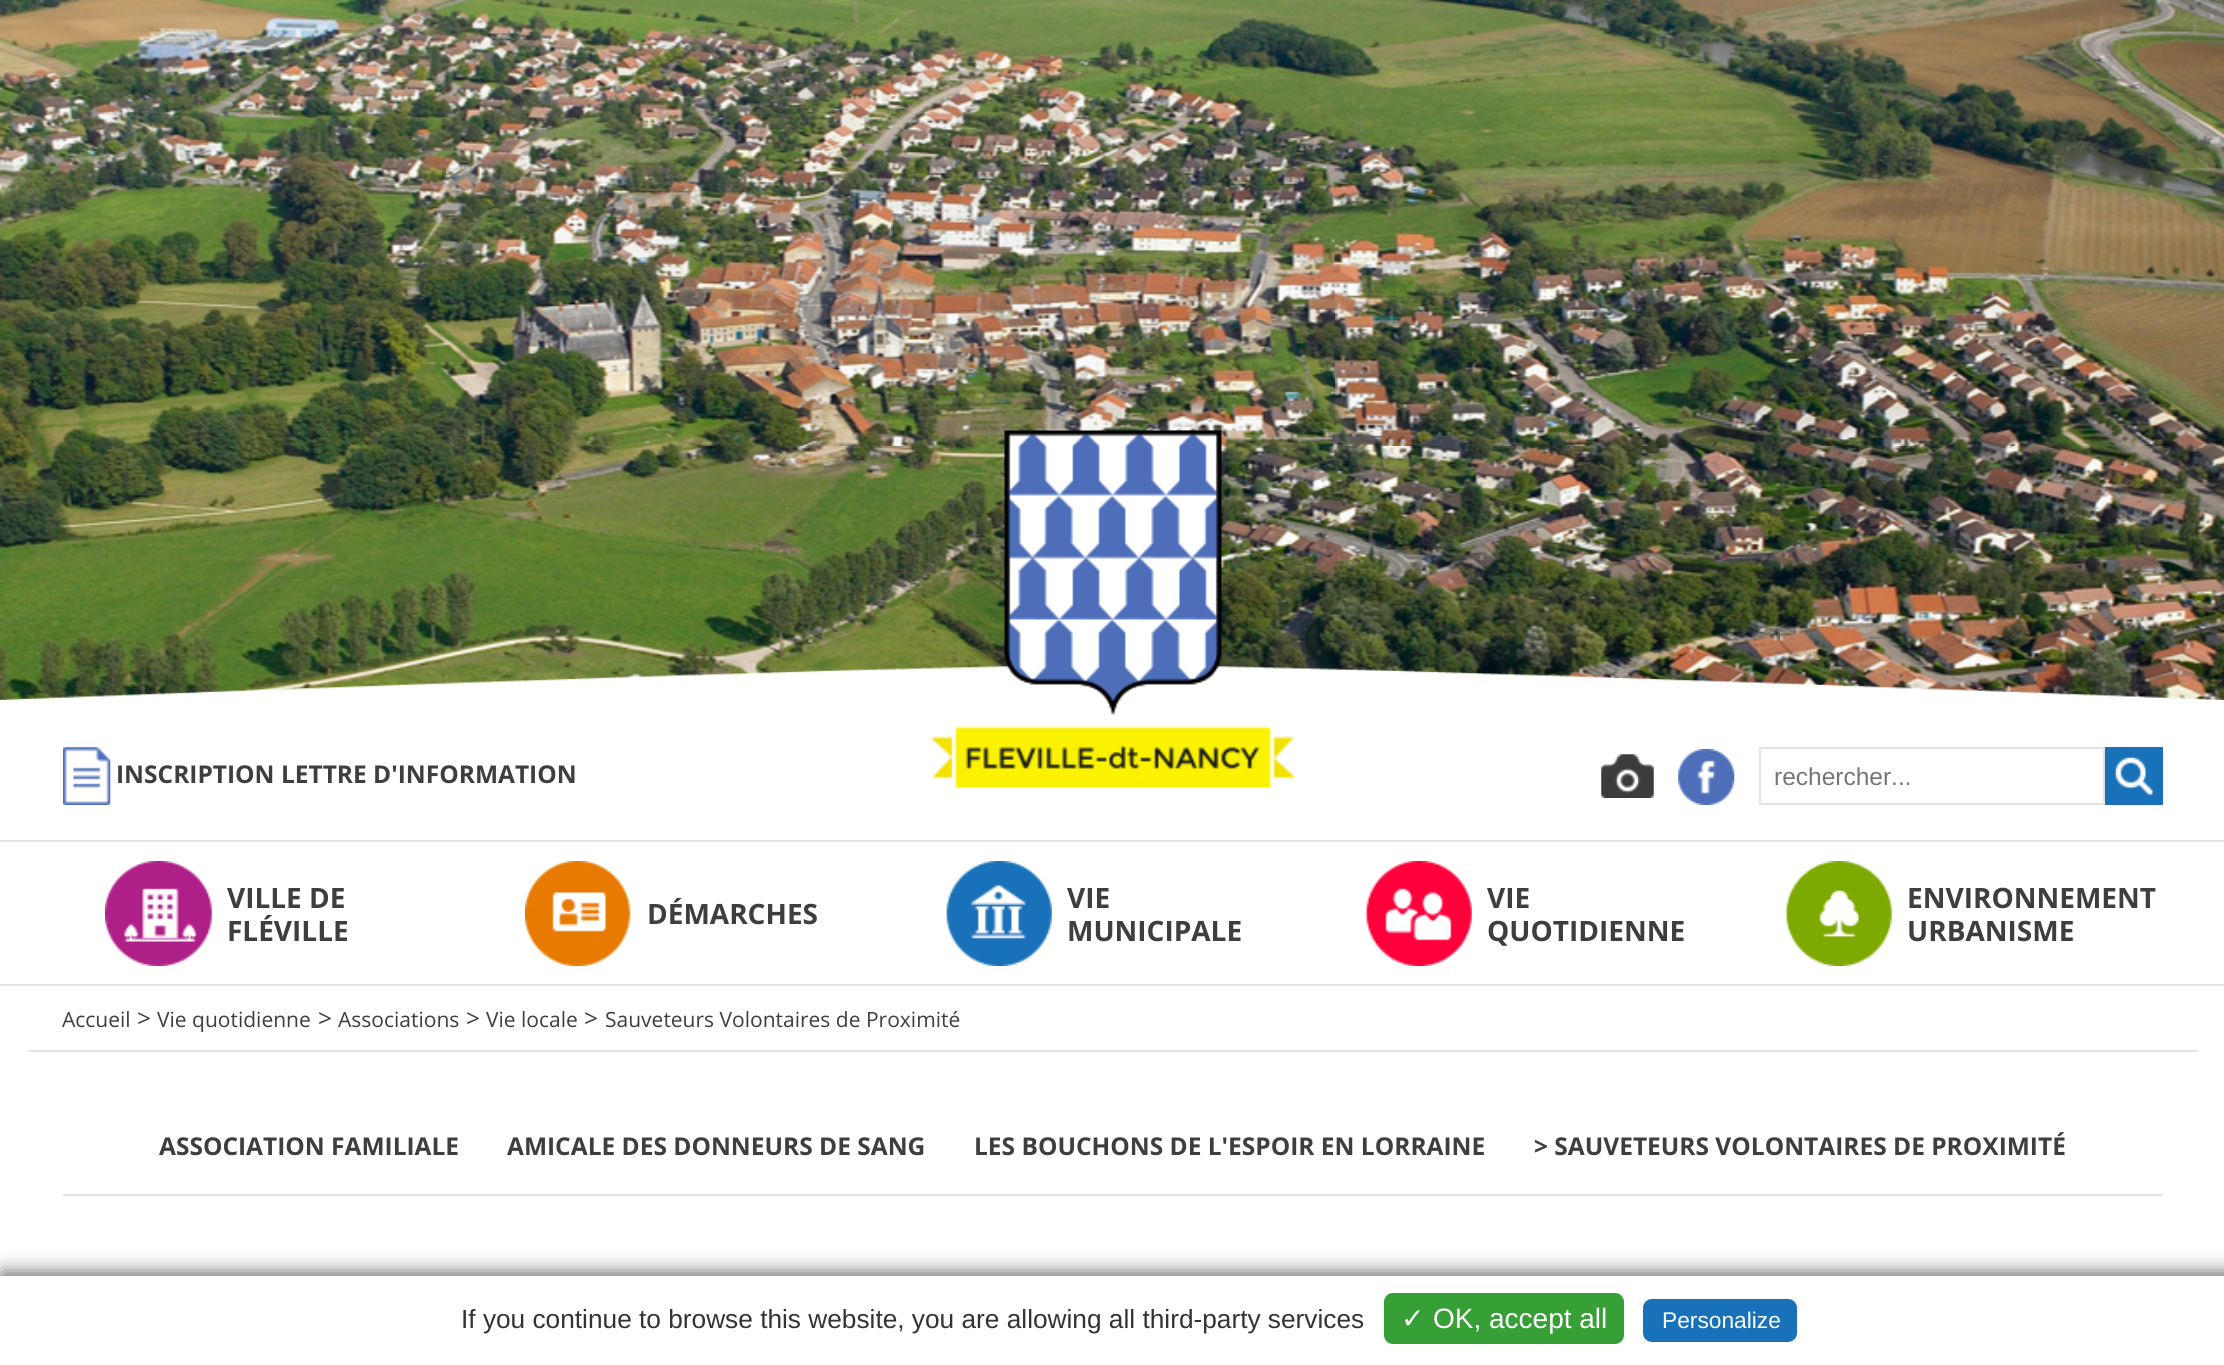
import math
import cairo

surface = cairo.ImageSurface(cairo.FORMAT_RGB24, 2224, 1365)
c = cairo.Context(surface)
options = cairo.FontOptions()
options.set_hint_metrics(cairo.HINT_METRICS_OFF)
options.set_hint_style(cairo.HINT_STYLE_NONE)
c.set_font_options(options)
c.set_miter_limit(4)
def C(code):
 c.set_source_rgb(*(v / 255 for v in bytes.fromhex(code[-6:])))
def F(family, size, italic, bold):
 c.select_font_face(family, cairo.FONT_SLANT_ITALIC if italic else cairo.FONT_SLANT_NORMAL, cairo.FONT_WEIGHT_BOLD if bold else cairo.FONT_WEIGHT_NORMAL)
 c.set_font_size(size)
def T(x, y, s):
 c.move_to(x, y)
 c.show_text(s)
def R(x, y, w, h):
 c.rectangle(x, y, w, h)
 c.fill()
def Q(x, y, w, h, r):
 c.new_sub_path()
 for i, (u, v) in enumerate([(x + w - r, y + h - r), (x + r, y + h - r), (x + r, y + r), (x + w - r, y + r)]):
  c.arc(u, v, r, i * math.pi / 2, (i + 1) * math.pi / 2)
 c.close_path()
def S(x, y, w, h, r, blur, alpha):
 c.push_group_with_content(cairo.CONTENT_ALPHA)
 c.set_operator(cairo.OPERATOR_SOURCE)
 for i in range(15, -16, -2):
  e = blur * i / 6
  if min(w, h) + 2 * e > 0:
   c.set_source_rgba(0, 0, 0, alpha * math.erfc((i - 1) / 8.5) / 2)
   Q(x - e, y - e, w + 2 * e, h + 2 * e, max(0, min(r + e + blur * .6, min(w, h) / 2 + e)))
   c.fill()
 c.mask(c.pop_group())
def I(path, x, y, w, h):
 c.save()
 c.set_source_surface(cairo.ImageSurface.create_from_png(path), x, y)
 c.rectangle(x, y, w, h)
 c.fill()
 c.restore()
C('ffffff')
c.paint()
I('1.png',0,0,2224,700)
I('2.png',0,666,2224,34)
I('3.png',63,747,48,58)
F('Open Sans',24.5,0,1)
C('3f3e3e')
T(116,783,'INSCRIPTION LETTRE D\'INFORMATION')
I('4.png',931,430,364,358)
I('5.png',1601,754,53,44)
I('6.png',1678,749,57,56)
c.rectangle(1760,748,344,56)
C('e3e3e3')
c.stroke()
F('Liberation Sans',24.5,0,0)
C('757575')
T(1774,785,'rechercher...')
C('1972b9')
R(2105,747,58,58)
I('7.png',2115,757,38,38)
C('e3e3e3')
R(0,840,2224,2)
R(0,984,2224,2)
I('8.png',105,861,107,105)
F('Open Sans',28,0,1)
C('3f3e3e')
T(227,908,'VILLE DE')
T(227,941,'FLÉVILLE')
I('9.png',525,861,106,105)
T(647,924,'DÉMARCHES')
I('10.png',946,861,106,105)
T(1067,908,'VIE')
T(1067,941,'MUNICIPALE')
I('11.png',1365,861,107,105)
T(1487,908,'VIE')
T(1487,941,'QUOTIDIENNE')
I('12.png',1785,861,107,105)
T(1907,908,'ENVIRONNEMENT')
T(1907,941,'URBANISME')
C('e3e3e3')
R(28,1050,2170,2)
F('Open Sans',21,0,0)
C('3f3e3e')
T(62,1027,'Accueil')
F('Open Sans',24.5,0,0)
T(137,1027,'>')
F('Open Sans',21,0,0)
T(157,1027,'Vie quotidienne')
F('Open Sans',24.5,0,0)
T(318,1027,'>')
F('Open Sans',21,0,0)
T(338,1027,'Associations')
F('Open Sans',24.5,0,0)
T(466,1027,'>')
F('Open Sans',21,0,0)
T(486,1027,'Vie locale')
F('Open Sans',24.5,0,0)
T(584,1027,'>')
F('Open Sans',21,0,0)
T(605,1027,'Sauveteurs Volontaires de Proximité')
C('e3e3e3')
R(63,1194,2100,2)
F('Open Sans',24.5,0,1)
C('3f3e3e')
T(159,1155,'ASSOCIATION FAMILIALE')
T(507,1155,'AMICALE DES DONNEURS DE SANG')
T(974,1155,'LES BOUCHONS DE L\'ESPOIR EN LORRAINE')
T(1534,1155,'> SAUVETEURS VOLONTAIRES DE PROXIMITÉ')
C('525252')
S(2,1274,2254,89,0,10.5,1)
C('ffffff')
R(0,1276,2224,89)
F('Liberation Sans',26.25,0,0)
C('333333')
T(461,1328,'If you continue to browse this website, you are allowing all third-party services')
C('36a036')
Q(1384,1293,240,51,9)
c.fill()
F('DejaVu Sans',28,0,0)
C('ffffff')
T(1401,1328,'✓')
F('Liberation Sans',28,0,0)
T(1433,1328,'OK, accept all')
C('1972b9')
Q(1643,1299,154,43,9)
c.fill()
F('Liberation Sans',22.75,0,0)
C('ffffff')
T(1662,1328,'Personalize')
surface.write_to_png('o.png')
